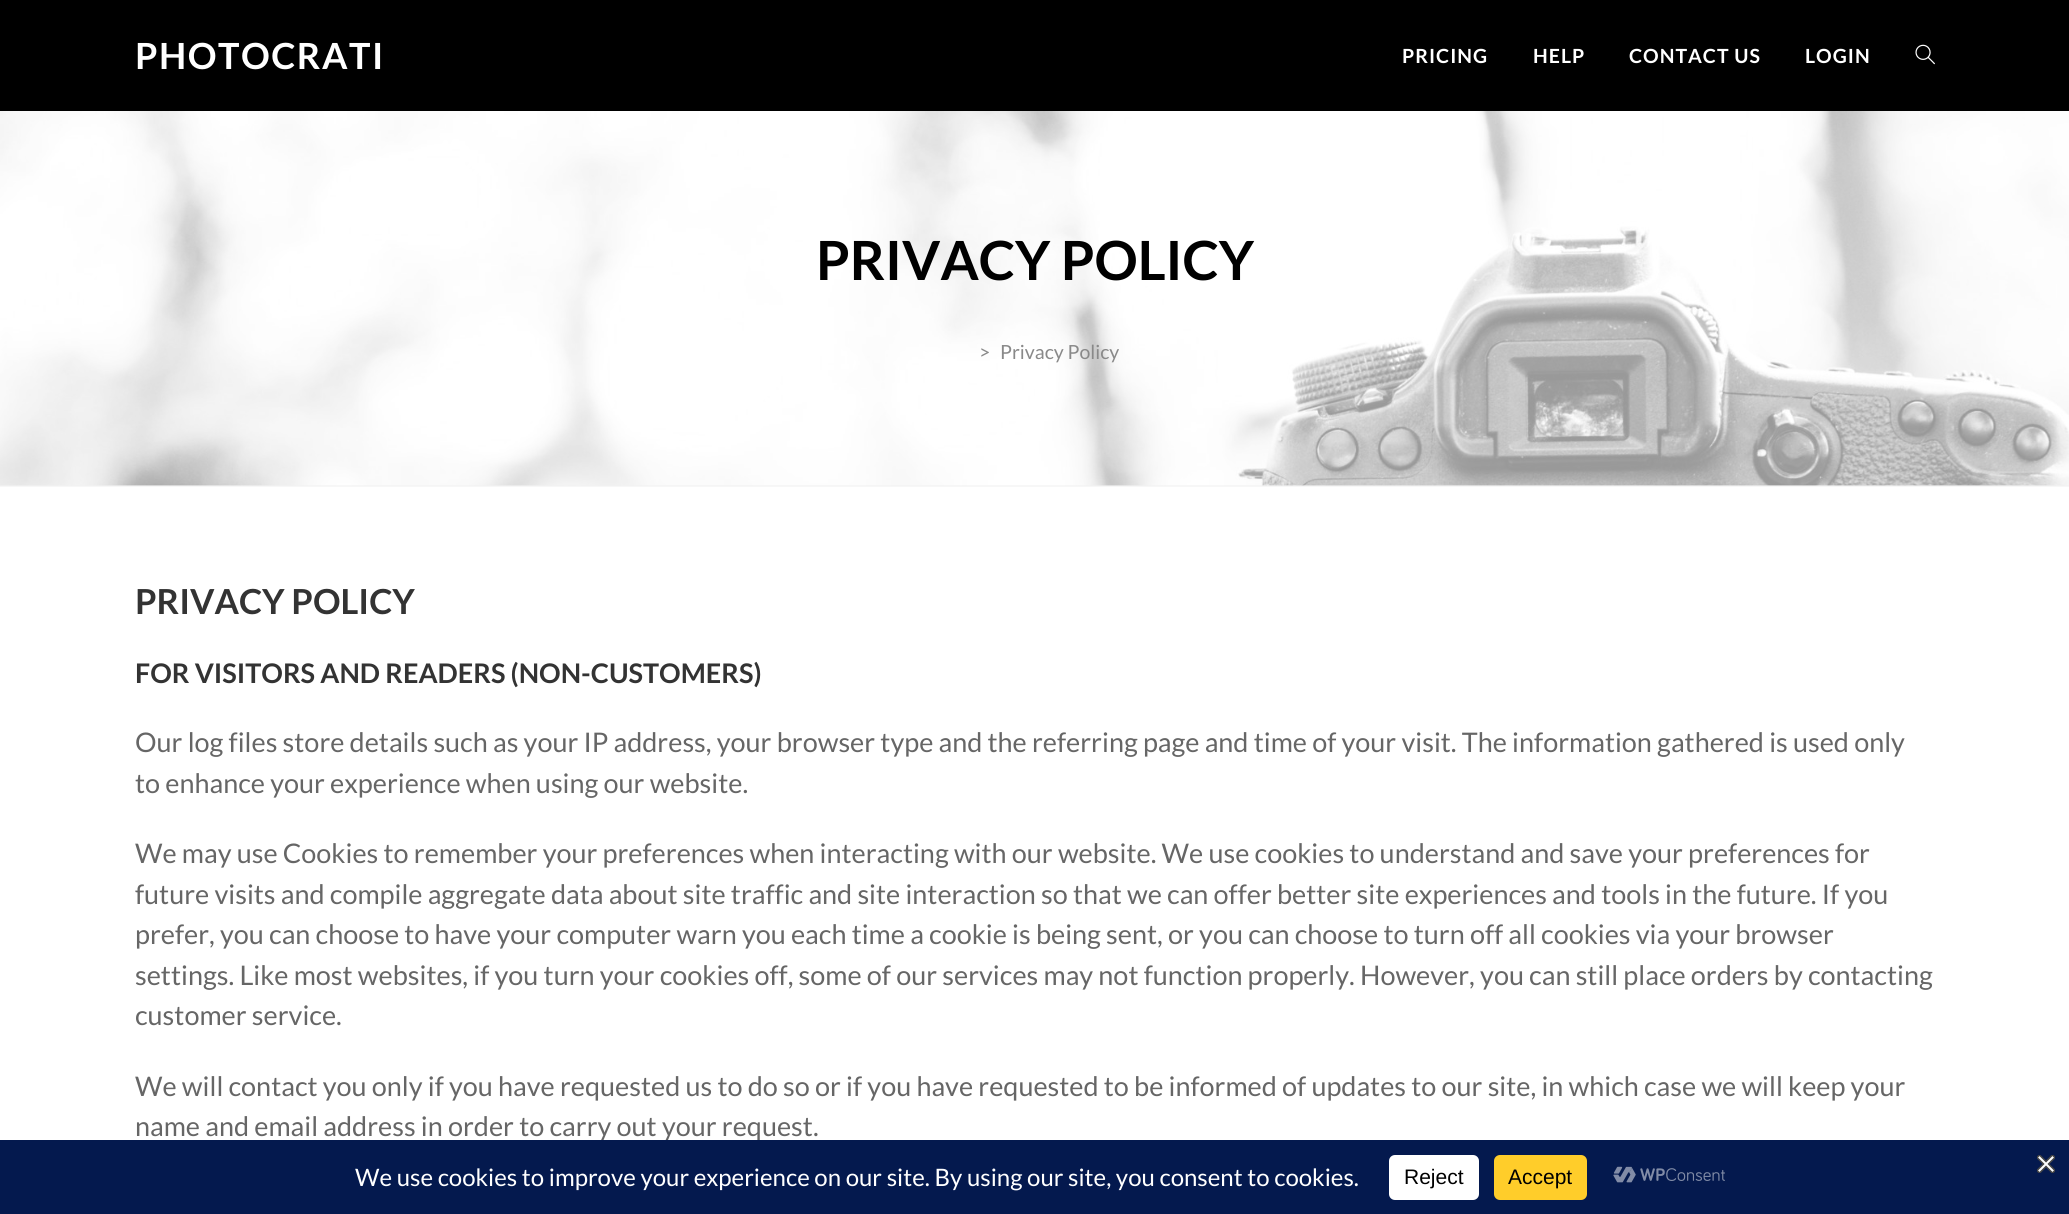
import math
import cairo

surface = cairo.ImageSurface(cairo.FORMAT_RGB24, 2069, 1214)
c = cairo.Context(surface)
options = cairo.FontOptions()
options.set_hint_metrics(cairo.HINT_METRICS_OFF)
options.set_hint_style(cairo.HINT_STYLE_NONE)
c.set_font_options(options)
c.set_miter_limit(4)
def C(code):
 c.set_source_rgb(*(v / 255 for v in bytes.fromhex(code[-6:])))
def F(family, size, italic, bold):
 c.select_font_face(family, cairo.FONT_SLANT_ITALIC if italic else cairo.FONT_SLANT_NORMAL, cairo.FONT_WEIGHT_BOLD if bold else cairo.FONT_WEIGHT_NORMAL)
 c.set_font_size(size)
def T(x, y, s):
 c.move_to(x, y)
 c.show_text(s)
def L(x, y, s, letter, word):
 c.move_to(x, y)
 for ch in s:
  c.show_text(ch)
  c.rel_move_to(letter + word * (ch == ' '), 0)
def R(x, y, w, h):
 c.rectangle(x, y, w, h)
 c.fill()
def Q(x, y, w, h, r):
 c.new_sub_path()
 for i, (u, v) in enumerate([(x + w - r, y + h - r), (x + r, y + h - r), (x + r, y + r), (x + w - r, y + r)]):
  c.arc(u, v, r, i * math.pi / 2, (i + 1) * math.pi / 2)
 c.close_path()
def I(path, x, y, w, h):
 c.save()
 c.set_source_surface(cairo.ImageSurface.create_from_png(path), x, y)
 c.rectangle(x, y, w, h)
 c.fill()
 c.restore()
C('ffffff')
c.paint()
C('000000')
R(0,0,2069,111)
F('Lato',36,0,1)
C('ffffff')
L(135,69,'PHOTOCRATI',1.5,0)
F('Lato',19.5,0,1)
L(1402,63,'PRICING',1,0)
L(1533,63,'HELP',1,0)
L(1629,63,'CONTACT US',1,0)
L(1805,63,'LOGIN',1,0)
I('1.png',1915,44,20,21)
I('2.png',0,111,2069,375)
F('Lato',54,0,1)
C('000000')
T(816,280,'PRIVACY POLICY')
F('Lato',19.5,0,0)
C('898989')
T(979,359,'>')
T(1000,359,'Privacy Policy')
c.set_source_rgba(0.945,0.945,0.945,0.6)
R(0,485,2069,2)
F('Lato',34.5,0,1)
C('333333')
T(135,614,'PRIVACY POLICY')
F('Lato',27,0,1)
T(135,683,'FOR VISITORS AND READERS (NON-CUSTOMERS)')
F('Lato',27,0,0)
C('666666')
T(135,752,'Our log files store details such as your IP address, your browser type and the referring page and time of your visit. The information gathered is used only')
T(135,793,'to enhance your experience when using our website.')
T(135,863,'We may use Cookies to remember your preferences when interacting with our website. We use cookies to understand and save your preferences for')
T(135,904,'future visits and compile aggregate data about site traffic and site interaction so that we can offer better site experiences and tools in the future. If you')
T(135,944,'prefer, you can choose to have your computer warn you each time a cookie is being sent, or you can choose to turn off all cookies via your browser')
T(135,985,'settings. Like most websites, if you turn your cookies off, some of our services may not function properly. However, you can still place orders by contacting')
T(135,1025,'customer service.')
T(135,1096,'We will contact you only if you have requested us to do so or if you have requested to be informed of updates to our site, in which case we will keep your')
T(135,1136,'name and email address in order to carry out your request.')
C('04194e')
R(0,1140,2069,74)
F('Lato',24,0,0)
C('ffffff')
T(355,1186,'We use cookies to improve your experience on our site. By using our site, you consent to cookies.')
Q(1389,1155,90,45,6)
c.fill()
F('Liberation Sans',21,0,0)
C('000000')
T(1404,1184,'Reject')
C('ffcd2a')
Q(1494,1155,93,45,6)
c.fill()
C('000000')
T(1508,1184,'Accept')
I('3.png',1613,1166,112,17)
I('4.png',2037,1155,18,18)
surface.write_to_png('o.png')
